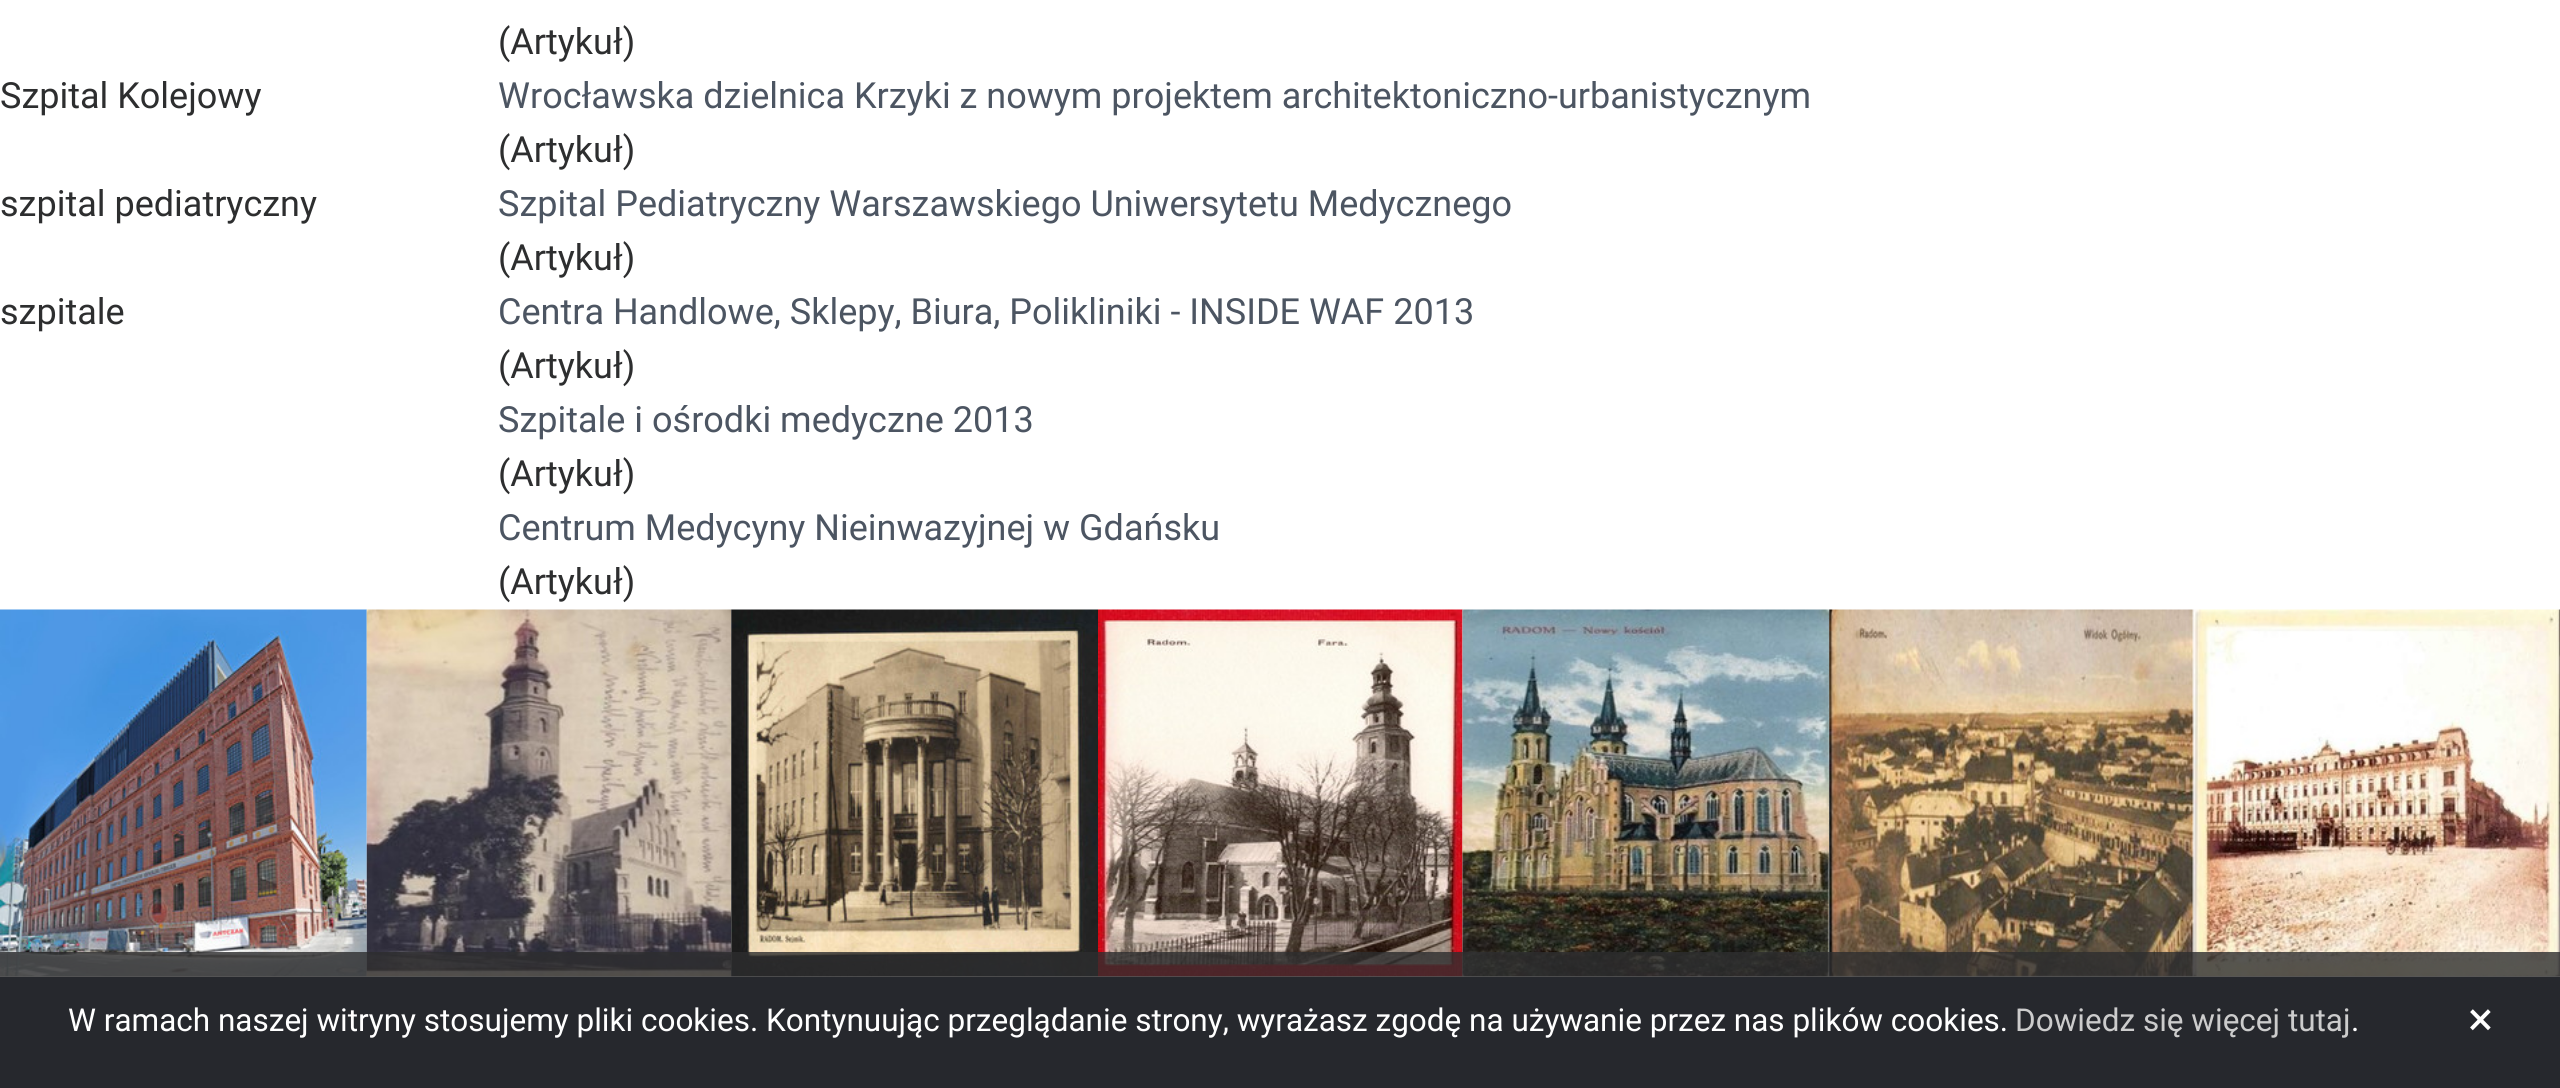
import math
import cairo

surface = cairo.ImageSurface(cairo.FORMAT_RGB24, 2560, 1088)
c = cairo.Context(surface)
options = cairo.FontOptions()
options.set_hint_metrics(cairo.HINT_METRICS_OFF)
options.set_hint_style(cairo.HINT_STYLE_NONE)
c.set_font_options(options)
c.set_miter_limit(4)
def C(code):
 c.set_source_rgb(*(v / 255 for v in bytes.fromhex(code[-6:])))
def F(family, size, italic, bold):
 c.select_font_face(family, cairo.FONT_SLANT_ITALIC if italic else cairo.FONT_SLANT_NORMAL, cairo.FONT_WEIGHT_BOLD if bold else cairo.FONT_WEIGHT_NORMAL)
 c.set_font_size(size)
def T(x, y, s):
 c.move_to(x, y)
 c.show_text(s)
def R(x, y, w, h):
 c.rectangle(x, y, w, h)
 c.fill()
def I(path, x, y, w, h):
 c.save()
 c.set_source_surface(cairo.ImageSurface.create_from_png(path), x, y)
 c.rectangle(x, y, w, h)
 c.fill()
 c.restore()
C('ffffff')
c.paint()
F('Roboto',36,0,0)
C('2d2e2f')
T(498,54,'(Artykuł)')
T(0,108,'Szpital Kolejowy')
C('4c5562')
T(498,108,'Wrocławska dzielnica Krzyki z nowym projektem architektoniczno-urbanistycznym')
C('2d2e2f')
T(498,162,'(Artykuł)')
T(0,216,'szpital pediatryczny')
C('4c5562')
T(498,216,'Szpital Pediatryczny Warszawskiego Uniwersytetu Medycznego')
C('2d2e2f')
T(498,270,'(Artykuł)')
T(0,324,'szpitale')
C('4c5562')
T(498,324,'Centra Handlowe, Sklepy, Biura, Polikliniki - INSIDE WAF 2013')
C('2d2e2f')
T(498,378,'(Artykuł)')
C('4c5562')
T(498,432,'Szpitale i ośrodki medyczne 2013')
C('2d2e2f')
T(498,486,'(Artykuł)')
C('4c5562')
T(498,540,'Centrum Medycyny Nieinwazyjnej w Gdańsku')
C('2d2e2f')
T(498,594,'(Artykuł)')
I('1.png',0,609,367,368)
I('2.png',366,609,366,368)
I('3.png',731,609,367,368)
I('4.png',1098,609,365,368)
I('5.png',1462,609,368,368)
I('6.png',1829,609,365,368)
I('7.png',2193,609,367,368)
C('0a1628')
R(0,977,2560,111)
c.set_source_rgba(0.176,0.18,0.184,0.8)
R(0,952,2560,136)
F('Roboto',31.5,0,0)
C('ffffff')
T(68,1031,'W ramach naszej witryny stosujemy pliki cookies. Kontynuując przeglądanie strony, wyrażasz zgodę na używanie przez nas plików cookies.')
C('cccccc')
T(2015,1031,'Dowiedz się więcej tutaj')
C('ffffff')
T(2351,1031,'.')
F('Roboto',47,0,0)
T(2468,1035,'×')
surface.write_to_png('o.png')
